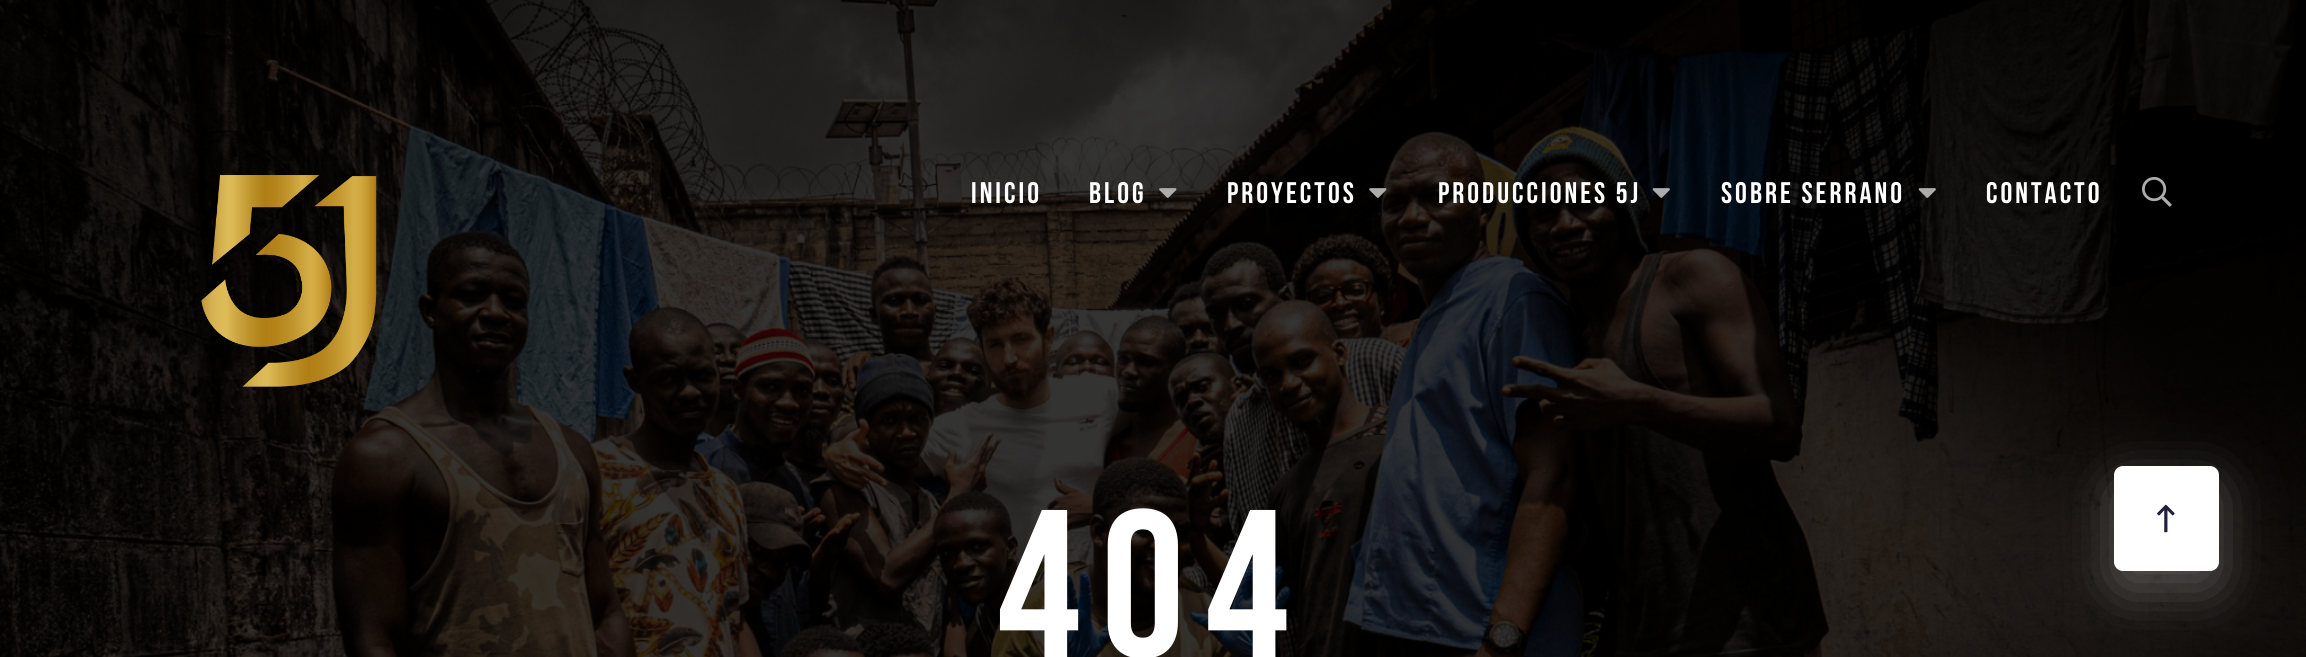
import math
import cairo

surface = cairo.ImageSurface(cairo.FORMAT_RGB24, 2306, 657)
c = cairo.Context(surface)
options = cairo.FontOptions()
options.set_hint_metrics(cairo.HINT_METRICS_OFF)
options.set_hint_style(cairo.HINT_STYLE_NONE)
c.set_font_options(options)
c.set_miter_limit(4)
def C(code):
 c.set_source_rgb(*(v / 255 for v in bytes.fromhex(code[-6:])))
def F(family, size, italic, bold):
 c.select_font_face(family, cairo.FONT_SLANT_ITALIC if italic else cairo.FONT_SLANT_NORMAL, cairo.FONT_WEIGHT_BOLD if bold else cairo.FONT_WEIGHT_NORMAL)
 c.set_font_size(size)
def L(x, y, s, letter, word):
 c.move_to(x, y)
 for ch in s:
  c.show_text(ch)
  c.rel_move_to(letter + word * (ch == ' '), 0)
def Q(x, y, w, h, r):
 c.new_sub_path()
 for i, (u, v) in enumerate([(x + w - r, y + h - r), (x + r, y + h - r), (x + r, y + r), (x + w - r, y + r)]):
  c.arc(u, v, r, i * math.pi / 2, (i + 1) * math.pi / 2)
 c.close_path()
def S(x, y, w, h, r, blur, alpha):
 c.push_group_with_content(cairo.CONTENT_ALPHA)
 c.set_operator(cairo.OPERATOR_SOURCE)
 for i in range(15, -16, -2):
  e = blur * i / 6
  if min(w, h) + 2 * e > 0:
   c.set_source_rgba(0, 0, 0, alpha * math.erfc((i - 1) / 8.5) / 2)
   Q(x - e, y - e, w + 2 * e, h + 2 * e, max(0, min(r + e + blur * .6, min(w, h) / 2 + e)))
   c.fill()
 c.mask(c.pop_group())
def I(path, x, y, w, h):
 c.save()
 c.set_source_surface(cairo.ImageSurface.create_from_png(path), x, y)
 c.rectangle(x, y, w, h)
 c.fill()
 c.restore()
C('ffffff')
c.paint()
I('7.png',0,0,2306,657)
I('1.png',201,175,176,212)
F('Bebas Neue',29.75,0,1)
C('ffffff')
L(971,203,'Inicio',3,0)
L(1089,203,'Blog',3,0)
I('2.png',1159,188,18,10)
L(1227,203,'Proyectos',3,0)
I('3.png',1369,188,18,10)
L(1438,203,'Producciones 5J',3,0)
I('4.png',1652,188,18,10)
L(1721,203,'Sobre SERRANO',3,0)
I('5.png',1918,188,18,10)
L(1986,203,'Contacto',3,0)
I('6.png',2142,177,30,30)
F('Bebas Neue',210,0,1)
L(997,657,'404',21,0)
C('c5c5c5')
S(2114,483,105,105,9,28,.4)
C('ffffff')
Q(2114,466,105,105,9)
c.fill()
I('8.png',2157,504,18,29)
surface.write_to_png('o.png')
